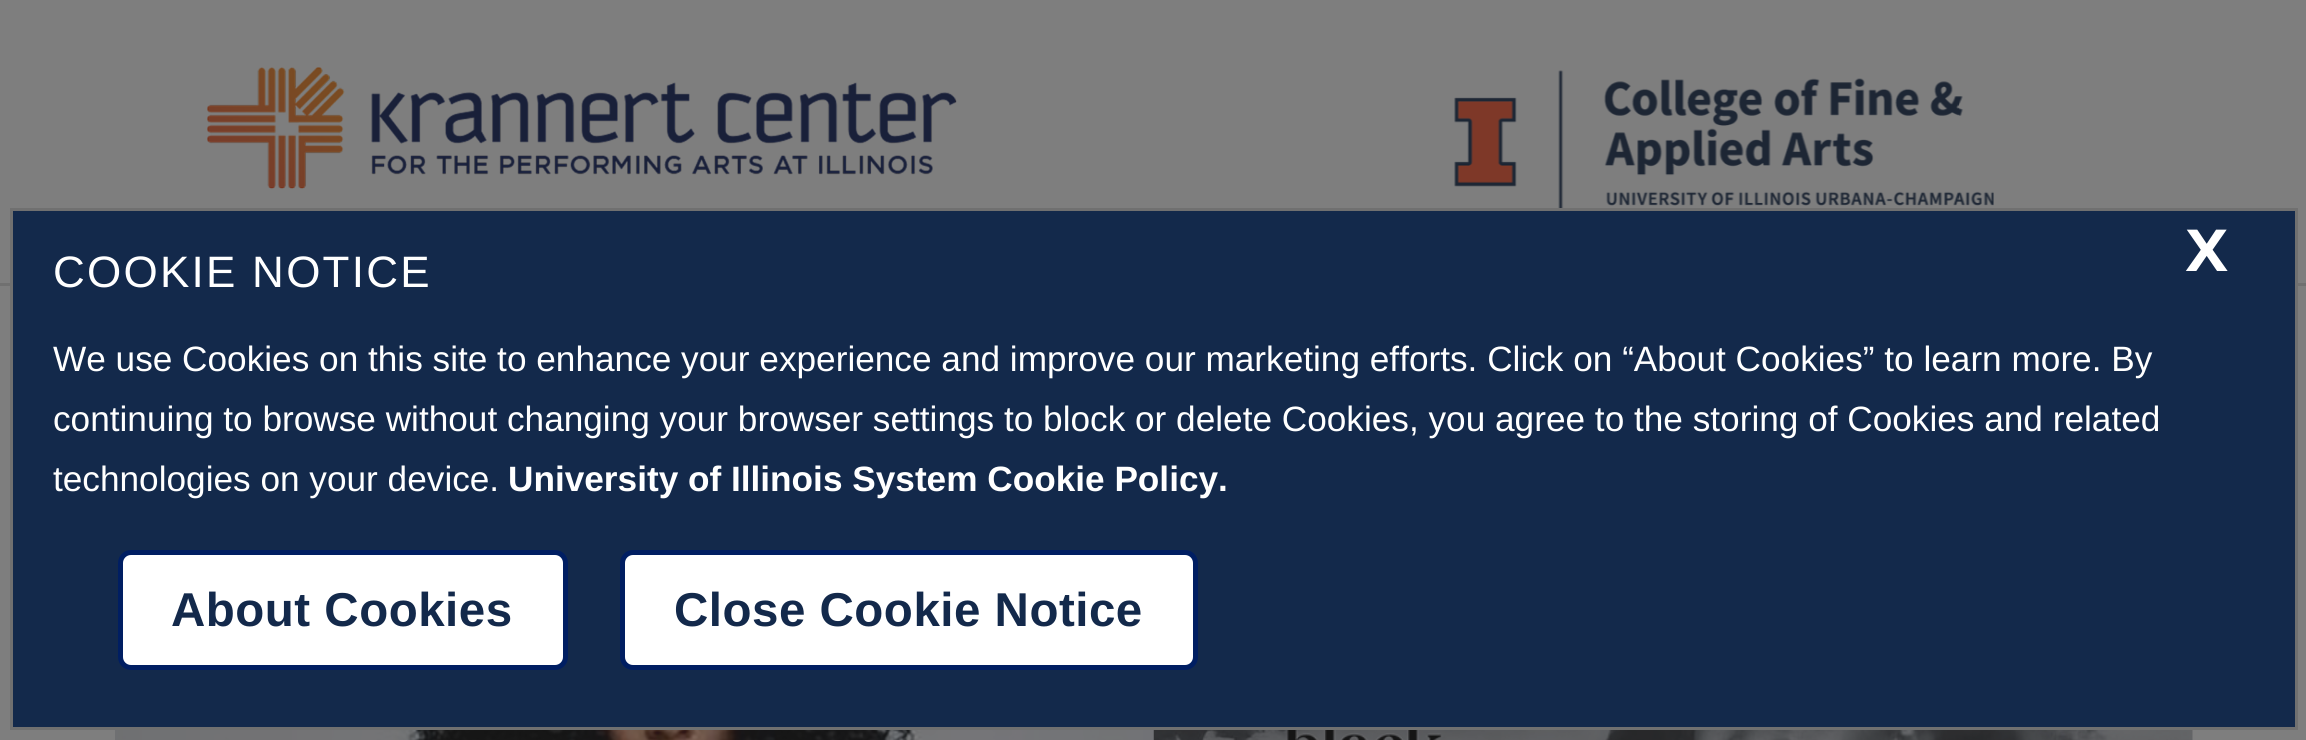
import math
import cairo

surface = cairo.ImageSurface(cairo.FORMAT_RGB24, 2306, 740)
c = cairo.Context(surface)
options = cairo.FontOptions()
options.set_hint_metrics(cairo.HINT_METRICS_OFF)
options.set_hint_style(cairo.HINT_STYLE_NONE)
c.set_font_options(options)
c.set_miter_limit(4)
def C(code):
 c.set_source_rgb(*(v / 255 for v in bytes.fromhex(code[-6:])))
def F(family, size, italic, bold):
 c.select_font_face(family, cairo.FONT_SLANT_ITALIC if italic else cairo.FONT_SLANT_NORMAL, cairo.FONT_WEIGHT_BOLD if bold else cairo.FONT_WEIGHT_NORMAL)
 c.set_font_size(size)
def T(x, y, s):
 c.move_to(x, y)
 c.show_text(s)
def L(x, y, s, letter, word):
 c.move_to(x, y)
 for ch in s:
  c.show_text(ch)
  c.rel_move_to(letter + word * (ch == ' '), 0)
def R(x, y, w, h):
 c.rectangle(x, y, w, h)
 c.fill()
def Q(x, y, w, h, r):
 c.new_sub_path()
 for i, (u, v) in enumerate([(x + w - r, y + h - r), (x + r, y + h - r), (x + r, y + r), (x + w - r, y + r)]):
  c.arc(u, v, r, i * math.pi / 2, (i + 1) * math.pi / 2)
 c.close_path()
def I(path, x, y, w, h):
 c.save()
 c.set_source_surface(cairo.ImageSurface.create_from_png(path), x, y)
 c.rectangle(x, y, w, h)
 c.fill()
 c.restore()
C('7e7e7e')
c.paint()
C('707070')
R(0,283,2306,3)
I('1.png',207,67,750,123)
I('2.png',1454,70,540,138)
I('3.png',115,730,2078,10)
C('13294b')
c.rectangle(11.5,209.5,2285,519)
c.fill_preserve()
C('707070')
c.set_line_width(3)
c.stroke()
F('Liberation Sans',44,0,0)
C('ffffff')
L(53,287,'COOKIE NOTICE',2.25,0)
F('Proxima Nova',62,0,1)
T(2186,271,'X')
F('Liberation Sans',35.2,0,0)
T(53,371,'We use Cookies on this site to enhance your experience and improve our marketing efforts. Click on “About Cookies” to learn more. By')
T(53,431,'continuing to browse without changing your browser settings to block or delete Cookies, you agree to the storing of Cookies and related')
T(53,491,'technologies on your device.')
F('Liberation Sans',35.2,0,1)
T(508,491,'University of Illinois System Cookie Policy.')
Q(120.5,552.5,445,115,10.5)
c.fill_preserve()
C('001e62')
c.set_line_width(5)
c.stroke()
F('Liberation Sans',47.5,0,1)
C('13294b')
L(171,626,'About Cookies',.5,0)
C('ffffff')
Q(622.5,552.5,573,115,10.5)
c.fill_preserve()
C('001e62')
c.stroke()
C('13294b')
L(674,626,'Close Cookie Notice',.5,0)
surface.write_to_png('o.png')
